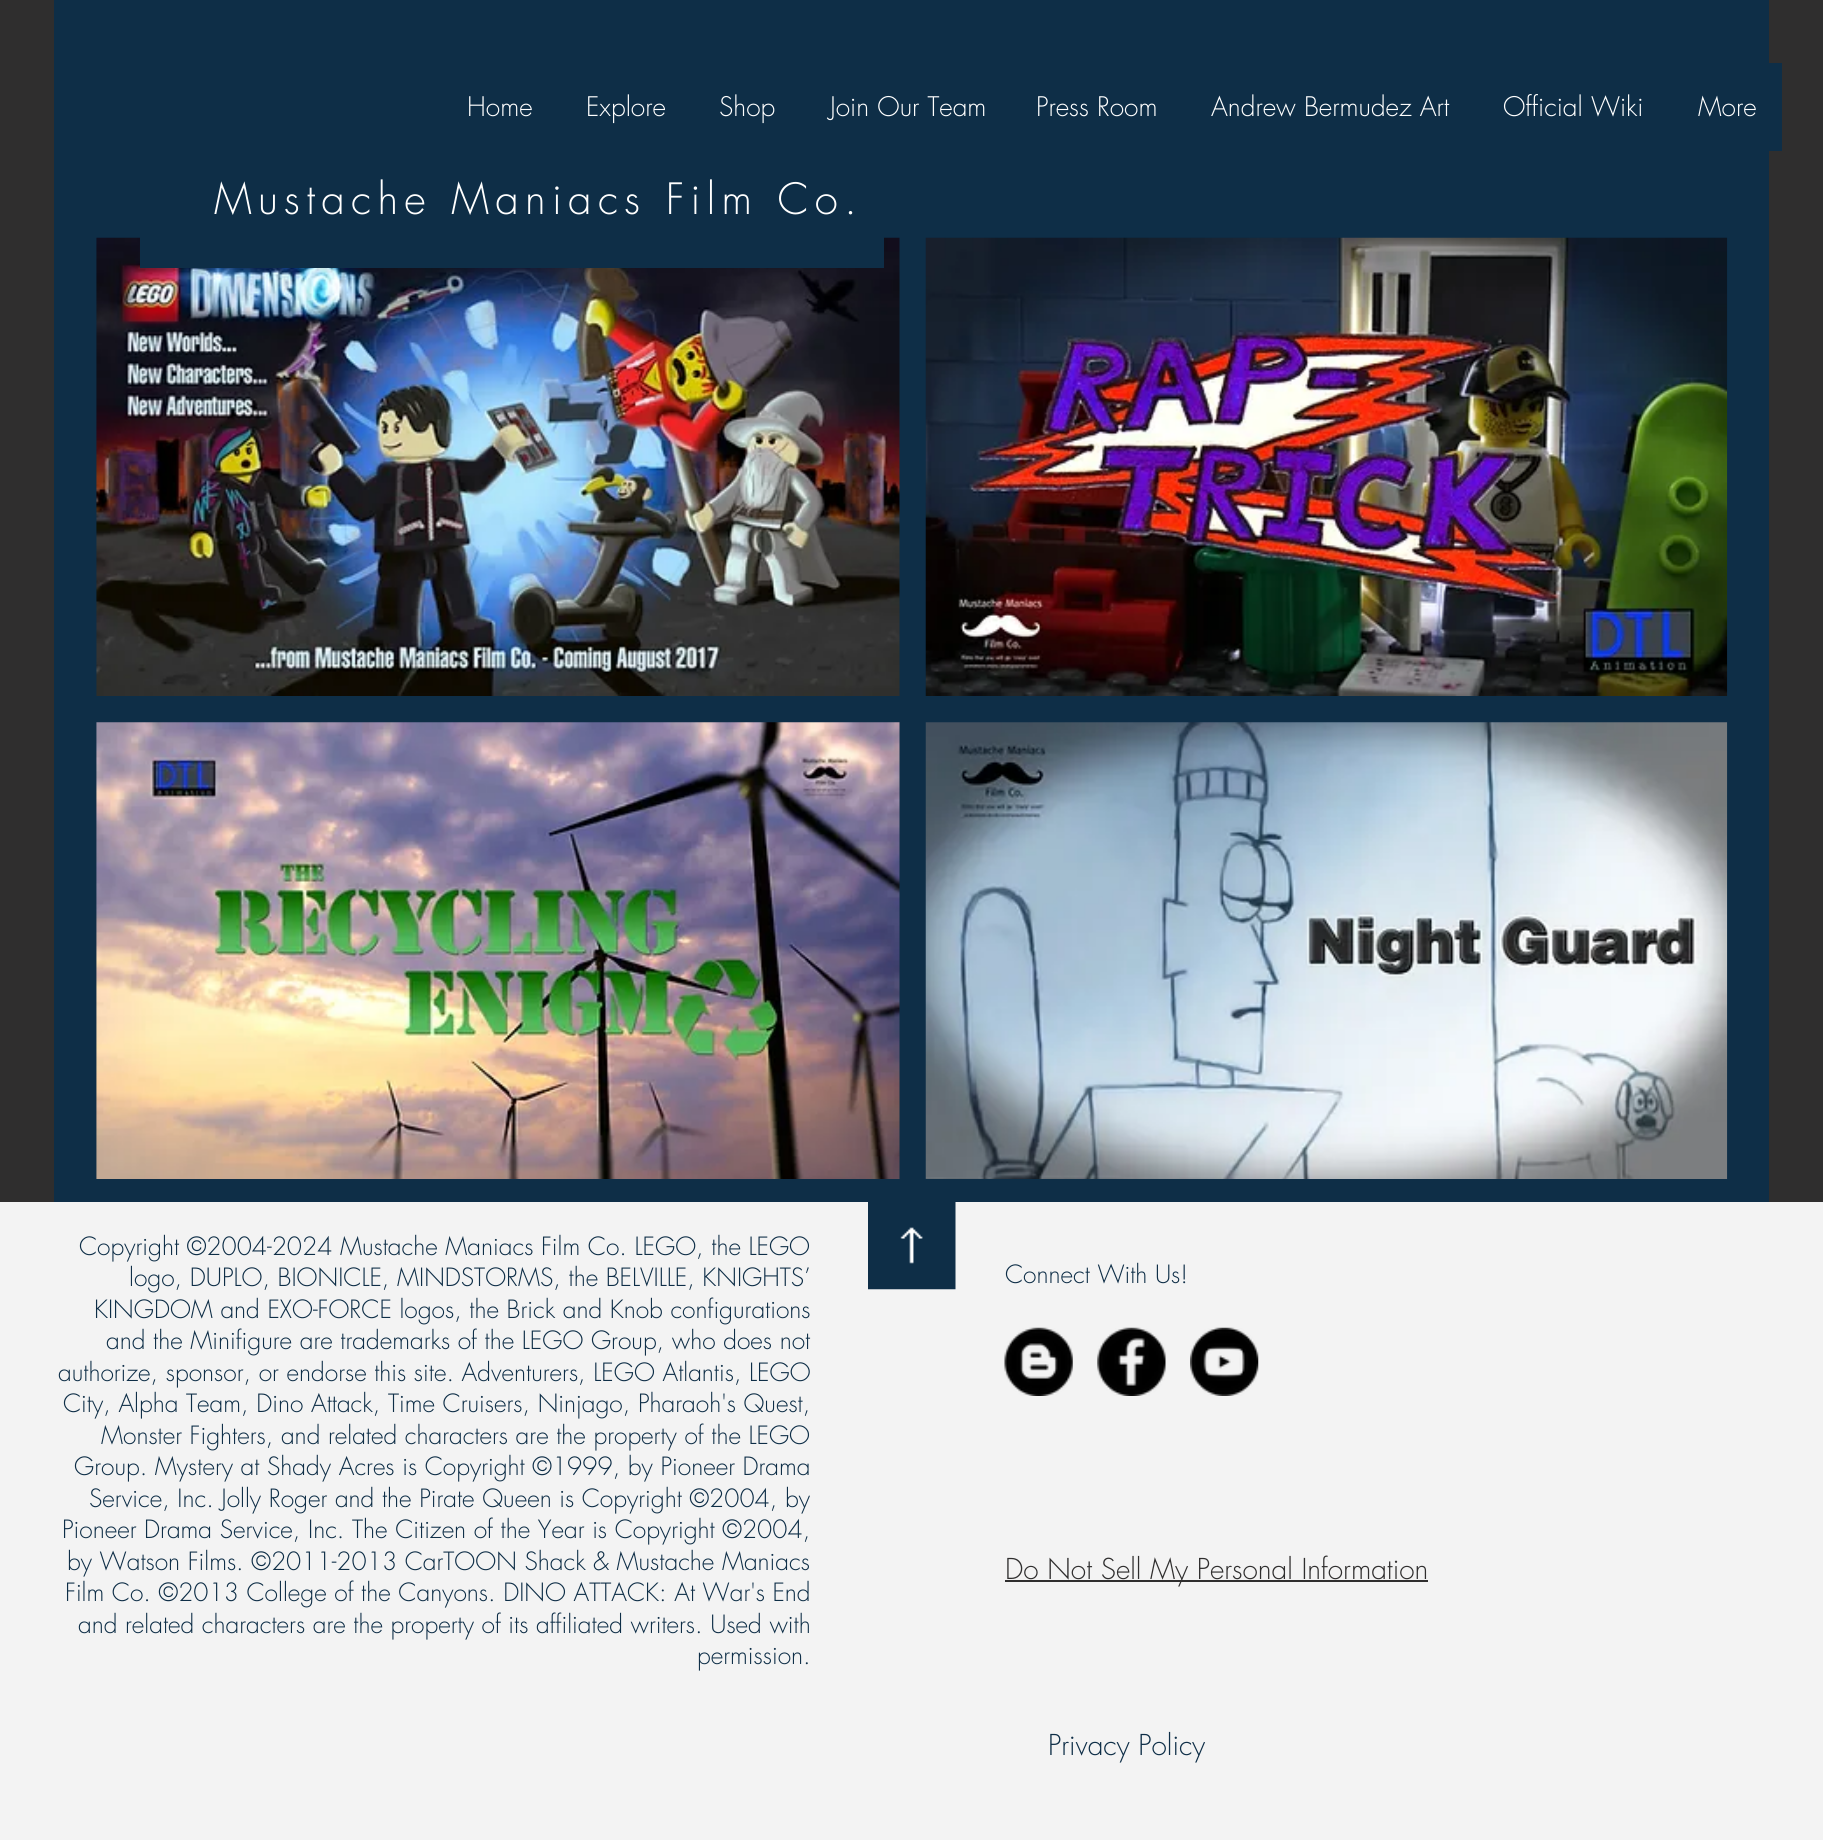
import math
import cairo

surface = cairo.ImageSurface(cairo.FORMAT_RGB24, 1823, 1840)
c = cairo.Context(surface)
options = cairo.FontOptions()
options.set_hint_metrics(cairo.HINT_METRICS_OFF)
options.set_hint_style(cairo.HINT_STYLE_NONE)
c.set_font_options(options)
c.set_miter_limit(4)
def C(code):
 c.set_source_rgb(*(v / 255 for v in bytes.fromhex(code[-6:])))
def F(family, size, italic, bold):
 c.select_font_face(family, cairo.FONT_SLANT_ITALIC if italic else cairo.FONT_SLANT_NORMAL, cairo.FONT_WEIGHT_BOLD if bold else cairo.FONT_WEIGHT_NORMAL)
 c.set_font_size(size)
def T(x, y, s):
 c.move_to(x, y)
 c.show_text(s)
def L(x, y, s, letter, word):
 c.move_to(x, y)
 for ch in s:
  c.show_text(ch)
  c.rel_move_to(letter + word * (ch == ' '), 0)
def R(x, y, w, h):
 c.rectangle(x, y, w, h)
 c.fill()
def I(path, x, y, w, h):
 c.save()
 c.set_source_surface(cairo.ImageSurface.create_from_png(path), x, y)
 c.rectangle(x, y, w, h)
 c.fill()
 c.restore()
C('2f2e2e')
c.paint()
C('0e2e47')
R(54,0,1715,1202)
I('1.png',96,237,804,459)
I('2.png',925,237,803,459)
I('3.png',96,722,804,457)
I('4.png',925,722,803,457)
R(1769,63,13,88)
F('futura Light',26.25,0,0)
C('ffffff')
T(467,116,'Home')
T(586,116,'Explore')
T(719,116,'Shop')
T(830,116,'Join Our Team')
T(1036,116,'Press Room')
T(1211,116,'Andrew Bermudez Art')
T(1503,116,'Official Wiki')
T(1698,116,'More')
F('futura Light',42,0,0)
L(214,214,'Mustache Maniacs Film Co.',6.3,0)
C('0e2e47')
R(140,237,744,31)
C('f3f3f3')
R(0,1202,1823,638)
F('futura Light',24.5,0,0)
C('0e2e47')
T(79,1255,'Copyright ©2004-2024 Mustache Maniacs Film Co. LEGO, the LEGO')
T(129,1286,'logo, DUPLO, BIONICLE, MINDSTORMS, the BELVILLE, KNIGHTS’')
T(94,1318,'KINGDOM and EXO-FORCE logos, the Brick and Knob configurations')
T(106,1349,'and the Minifigure are trademarks of the LEGO Group, who does not')
T(58,1381,'authorize, sponsor, or endorse this site. Adventurers, LEGO Atlantis, LEGO')
T(63,1412,'City, Alpha Team, Dino Attack, Time Cruisers, Ninjago, Pharaoh\'s Quest,')
T(101,1444,'Monster Fighters, and related characters are the property of the LEGO')
T(74,1475,'Group. Mystery at Shady Acres is Copyright ©1999, by Pioneer Drama')
T(89,1507,'Service, Inc. Jolly Roger and the Pirate Queen is Copyright ©2004, by')
T(62,1538,'Pioneer Drama Service, Inc. The Citizen of the Year is Copyright ©2004,')
T(67,1570,'by Watson Films. ©2011-2013 CarTOON Shack & Mustache Maniacs')
T(65,1601,'Film Co. ©2013 College of the Canyons. DINO ATTACK: At War\'s End')
T(78,1633,'and related characters are the property of its affiliated writers. Used with')
T(697,1664,'permission.')
I('5.png',868,1202,88,88)
T(1005,1283,'Connect With Us!')
I('6.png',1004,1327,69,69)
I('7.png',1097,1327,69,69)
I('8.png',1190,1327,69,69)
C('2f2e2e')
R(1005,1580,423,2)
F('futura Light',28,0,0)
T(1005,1579,'Do Not Sell My Personal Information')
C('0e2e47')
T(1048,1755,'Privacy Policy')
surface.write_to_png('o.png')
